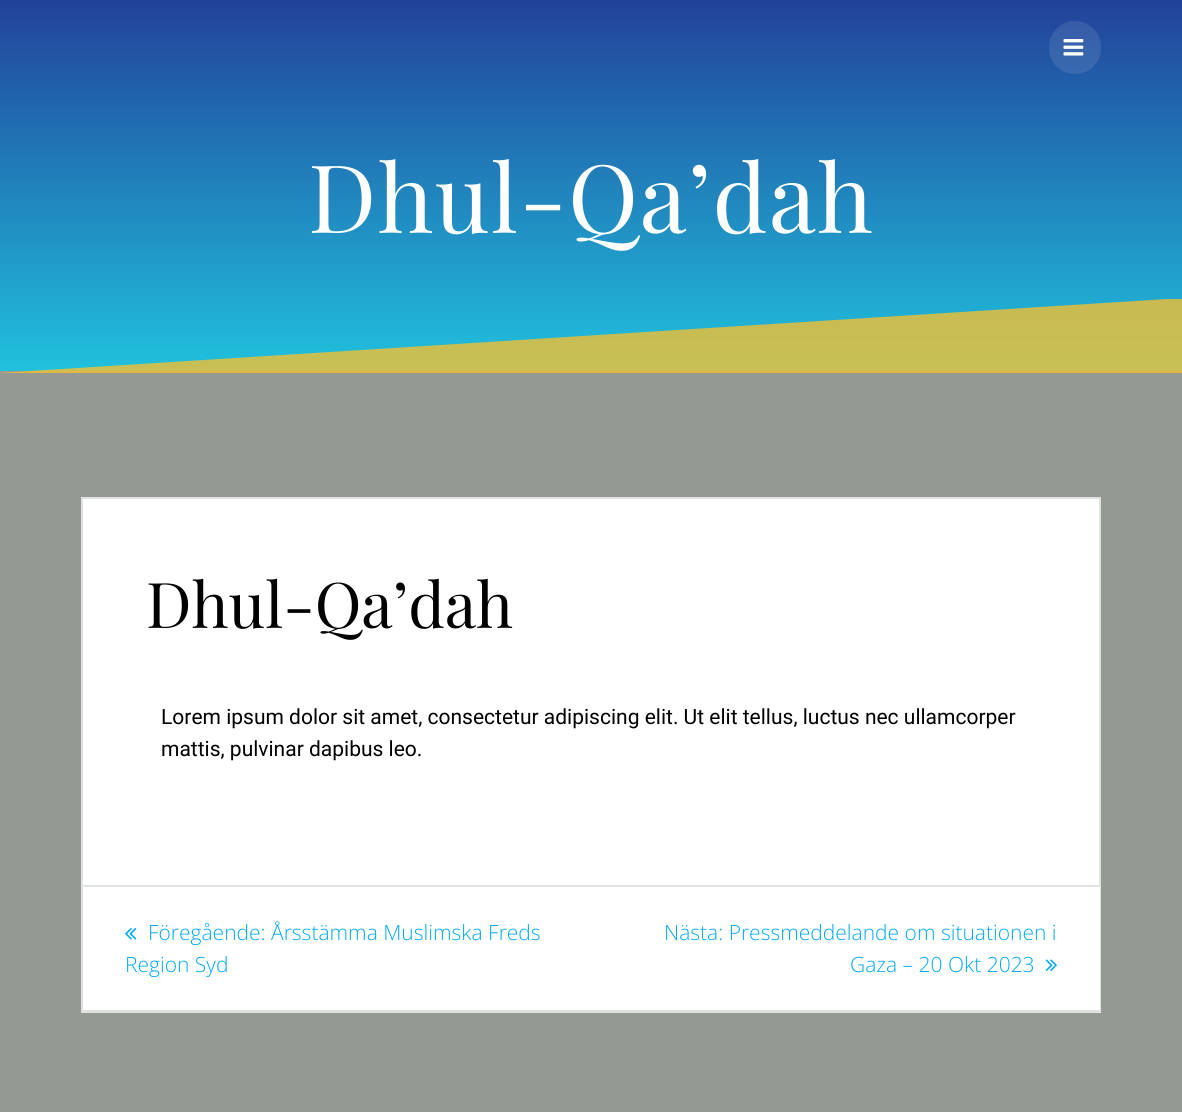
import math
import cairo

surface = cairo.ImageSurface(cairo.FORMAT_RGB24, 1182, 1112)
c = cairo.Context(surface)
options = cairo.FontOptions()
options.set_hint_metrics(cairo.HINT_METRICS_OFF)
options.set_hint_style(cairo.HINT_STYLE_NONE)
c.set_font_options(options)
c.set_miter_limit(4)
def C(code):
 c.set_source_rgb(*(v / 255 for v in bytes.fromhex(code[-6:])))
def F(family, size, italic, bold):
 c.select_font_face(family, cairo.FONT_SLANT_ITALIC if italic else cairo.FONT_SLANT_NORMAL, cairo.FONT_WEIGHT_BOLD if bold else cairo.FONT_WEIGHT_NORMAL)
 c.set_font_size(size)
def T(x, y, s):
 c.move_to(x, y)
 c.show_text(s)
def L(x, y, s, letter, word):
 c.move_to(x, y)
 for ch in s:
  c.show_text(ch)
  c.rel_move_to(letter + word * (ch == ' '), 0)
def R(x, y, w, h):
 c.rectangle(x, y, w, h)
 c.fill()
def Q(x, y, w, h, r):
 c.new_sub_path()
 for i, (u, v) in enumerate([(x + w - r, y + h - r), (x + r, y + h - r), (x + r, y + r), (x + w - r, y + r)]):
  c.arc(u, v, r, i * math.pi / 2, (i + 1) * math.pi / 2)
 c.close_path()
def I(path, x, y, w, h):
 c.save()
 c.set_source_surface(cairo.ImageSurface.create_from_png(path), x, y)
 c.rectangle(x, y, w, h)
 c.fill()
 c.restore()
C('949994')
c.paint()
gradient = cairo.LinearGradient(591,371,591,0)
gradient.add_color_stop_rgba(0,0.125,0.757,0.867,1)
gradient.add_color_stop_rgba(1,0.133,0.259,0.604,1)
c.set_source(gradient)
R(0,0,1182,371)
c.set_source_rgba(1,1,1,0.1)
Q(1049,21,52,53,26)
c.fill()
I('1.png',1063,39,21,17)
F('Playfair Display',94.5,0,0)
C('ffffff')
L(308,233,'Dhul-Qa’dah',1.4,0)
c.save()
c.rectangle(0,299,1182,75)
c.clip()
c.set_source_rgba(0.984,0.753,0.176,0.77)
c.new_path()
c.move_to(-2,373)
c.line_to(1182,373)
c.line_to(1182,298)
c.close_path()
c.fill()
c.restore()
R(83,499,1016,386)
c.rectangle(82,498,1018,514)
C('e0e1e1')
c.stroke()
F('Playfair Display',63,0,0)
C('000000')
T(146,628,'Dhul-Qa’dah')
F('Roboto',21,0,0)
T(161,724,'Lorem ipsum dolor sit amet, consectetur adipiscing elit. Ut elit tellus, luctus nec ullamcorper')
T(161,756,'mattis, pulvinar dapibus leo.')
C('ffffff')
R(83,887,1017,123)
C('e0e1e1')
R(83,885,1017,2)
R(83,1010,1017,1)
I('2.png',125,928,12,12)
F('Open Sans Light',21,0,0)
C('03a9f4')
T(148,940,'Föregående: Årsstämma Muslimska Freds')
T(125,972,'Region Syd')
T(664,940,'Nästa: Pressmeddelande om situationen i')
T(850,972,'Gaza – 20 Okt 2023')
I('3.png',1045,959,12,12)
surface.write_to_png('o.png')
